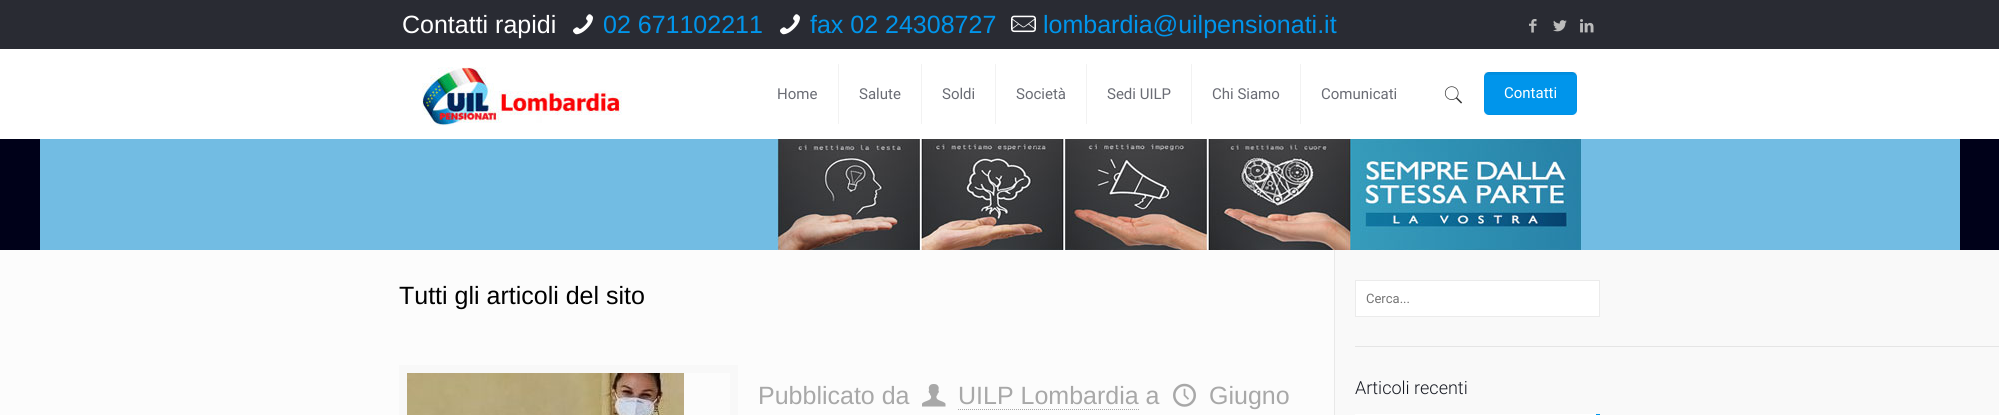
import math
import cairo

surface = cairo.ImageSurface(cairo.FORMAT_RGB24, 1999, 415)
c = cairo.Context(surface)
options = cairo.FontOptions()
options.set_hint_metrics(cairo.HINT_METRICS_OFF)
options.set_hint_style(cairo.HINT_STYLE_NONE)
c.set_font_options(options)
c.set_miter_limit(4)
def C(code):
 c.set_source_rgb(*(v / 255 for v in bytes.fromhex(code[-6:])))
def F(family, size, italic, bold):
 c.select_font_face(family, cairo.FONT_SLANT_ITALIC if italic else cairo.FONT_SLANT_NORMAL, cairo.FONT_WEIGHT_BOLD if bold else cairo.FONT_WEIGHT_NORMAL)
 c.set_font_size(size)
def T(x, y, s):
 c.move_to(x, y)
 c.show_text(s)
def R(x, y, w, h):
 c.rectangle(x, y, w, h)
 c.fill()
def Q(x, y, w, h, r):
 c.new_sub_path()
 for i, (u, v) in enumerate([(x + w - r, y + h - r), (x + r, y + h - r), (x + r, y + r), (x + w - r, y + r)]):
  c.arc(u, v, r, i * math.pi / 2, (i + 1) * math.pi / 2)
 c.close_path()
def I(path, x, y, w, h):
 c.save()
 c.set_source_surface(cairo.ImageSurface.create_from_png(path), x, y)
 c.rectangle(x, y, w, h)
 c.fill()
 c.restore()
C('fcfcfc')
c.paint()
C('000119')
R(0,139,1999,111)
I('1.png',40,139,1920,111)
C('292b33')
R(0,0,1999,49)
F('Liberation Sans',25,0,0)
C('ffffff')
T(402,33,'Contatti rapidi')
I('2.png',573,14,20,21)
C('0095eb')
T(603,33,'02 671102211')
I('2.png',780,14,20,21)
T(810,33,'fax 02 24308727')
I('3.png',1011,15,25,18)
T(1043,33,'lombardia@uilpensionati.it')
I('4.png',1529,19,8,14)
I('5.png',1553,20,14,12)
I('6.png',1580,19,14,14)
C('ffffff')
R(0,49,1999,90)
I('7.png',422,67,200,59)
C('f2f2f2')
R(838,64,1,60)
F('Roboto',15,0,0)
C('6a6c74')
T(777,99,'Home')
C('f2f2f2')
R(921,64,1,60)
C('6a6c74')
T(859,99,'Salute')
C('f2f2f2')
R(995,64,1,60)
C('6a6c74')
T(942,99,'Soldi')
C('f2f2f2')
R(1086,64,1,60)
C('6a6c74')
T(1016,99,'Società')
C('f2f2f2')
R(1191,64,1,60)
C('6a6c74')
T(1107,99,'Sedi UILP')
C('f2f2f2')
R(1300,64,1,60)
C('6a6c74')
T(1212,99,'Chi Siamo')
T(1321,99,'Comunicati')
I('8.png',1444,86,19,18)
C('0095eb')
Q(1484,72,93,43,5)
c.fill()
c.set_source_rgba(0,0,0,0.05)
R(1485,72,91,3)
c.rectangle(1484.5,72.5,92,42)
c.set_source_rgba(0,0,0,0.03)
c.set_line_width(1)
c.stroke()
C('ffffff')
T(1504,98,'Contatti')
F('Liberation Sans',25,0,0)
C('000000')
T(399,304,'Tutti gli articoli del sito')
c.rectangle(403,369,331,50)
C('f8f8f8')
c.set_line_width(8)
c.stroke()
I('9.png',407,373,277,42)
C('a8a8a8')
T(758,404,'Pubblicato da')
I('10.png',922,384,24,23)
T(958,404,'UILP Lombardia a')
c.new_path()
c.move_to(958,409.5)
c.line_to(1139,409.5)
c.set_line_width(1)
c.set_dash([1,1])
c.stroke()
I('11.png',1173,383,23,24)
T(1209,404,'Giugno')
C('e8e8e8')
R(1334,250,1,165)
C('f9f9f9')
R(1335,250,664,165)
C('ffffff')
c.rectangle(1355.5,280.5,244,36)
c.fill_preserve()
C('ebebeb')
c.set_dash([])
c.stroke()
F('Roboto',13,0,0)
C('757575')
T(1366,303,'Cerca...')
C('e5e5e5')
R(1355,346,644,1)
F('Roboto Light',18,0,0)
C('161922')
T(1355,394,'Articoli recenti')
C('ffffff')
R(1355,414,245,1)
C('0095eb')
R(1596,414,4,1)
surface.write_to_png('o.png')
